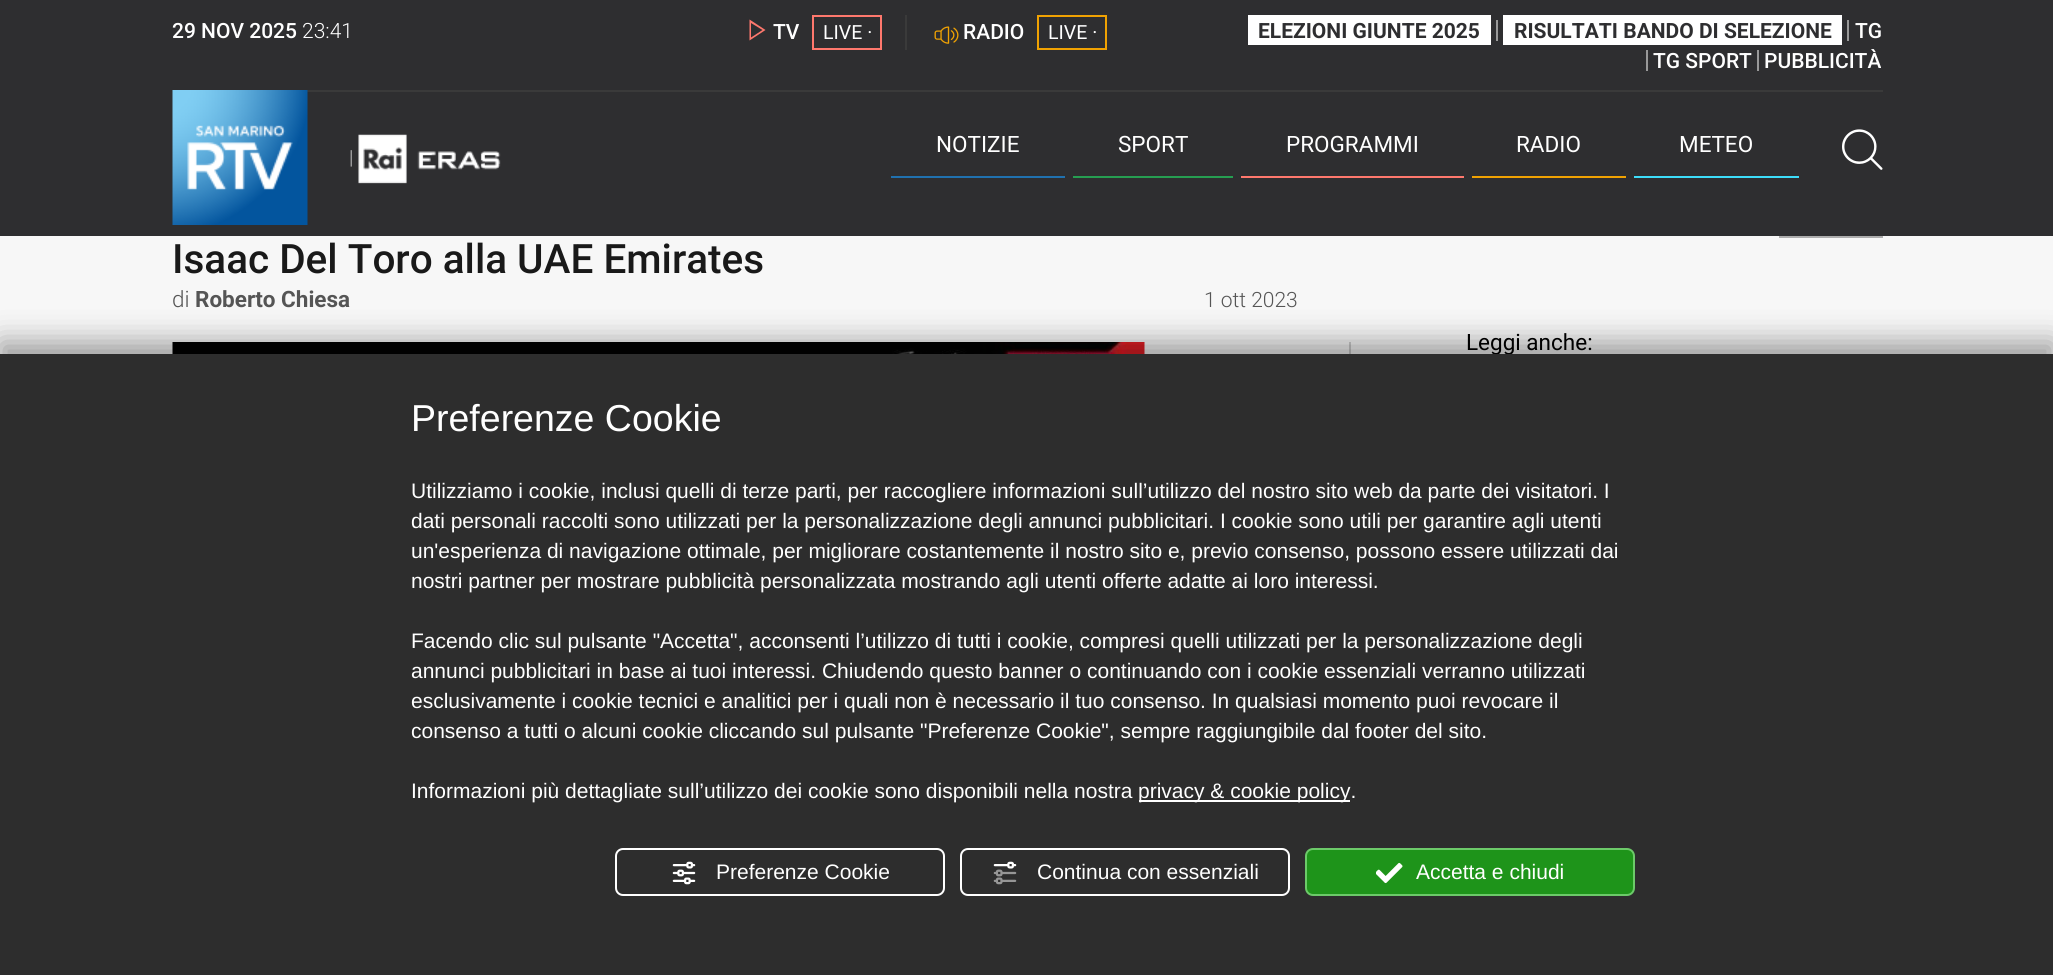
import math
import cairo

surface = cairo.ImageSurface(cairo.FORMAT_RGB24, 2053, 975)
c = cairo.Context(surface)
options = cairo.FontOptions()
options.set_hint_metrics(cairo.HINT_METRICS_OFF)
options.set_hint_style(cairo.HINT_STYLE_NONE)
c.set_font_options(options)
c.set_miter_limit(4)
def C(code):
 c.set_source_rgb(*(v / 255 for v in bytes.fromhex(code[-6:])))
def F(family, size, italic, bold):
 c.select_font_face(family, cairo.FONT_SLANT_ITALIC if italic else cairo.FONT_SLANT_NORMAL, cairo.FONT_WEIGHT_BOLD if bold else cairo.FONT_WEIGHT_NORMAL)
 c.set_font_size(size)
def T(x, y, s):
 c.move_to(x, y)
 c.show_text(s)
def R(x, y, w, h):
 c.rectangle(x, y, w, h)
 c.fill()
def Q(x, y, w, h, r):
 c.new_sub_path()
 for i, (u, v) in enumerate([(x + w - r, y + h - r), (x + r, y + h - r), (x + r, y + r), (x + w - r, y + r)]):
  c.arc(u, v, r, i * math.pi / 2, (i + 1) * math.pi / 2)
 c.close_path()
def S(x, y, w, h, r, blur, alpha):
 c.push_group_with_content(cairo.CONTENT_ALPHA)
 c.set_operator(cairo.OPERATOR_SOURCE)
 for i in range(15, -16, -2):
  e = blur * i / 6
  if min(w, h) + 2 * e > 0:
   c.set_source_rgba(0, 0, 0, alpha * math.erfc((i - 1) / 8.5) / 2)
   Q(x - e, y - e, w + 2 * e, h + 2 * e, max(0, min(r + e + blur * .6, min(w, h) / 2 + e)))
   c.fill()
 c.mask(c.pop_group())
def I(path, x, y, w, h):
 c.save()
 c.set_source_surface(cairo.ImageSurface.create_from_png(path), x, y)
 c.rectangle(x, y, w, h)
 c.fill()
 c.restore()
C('f7f7f7')
c.paint()
C('2e2e30')
R(0,0,2053,236)
C('3a3a3a')
R(307,90,1576,2)
F('Roboto Medium',21,0,0)
C('ffffff')
T(172,38,'29 NOV 2025')
F('Roboto Light',21,0,0)
T(302,38,'23:41')
C('3a3a3a')
R(905,15,2,35)
C('ff786d')
c.new_path()
c.move_to(751,23)
c.line_to(762.5,30)
c.line_to(751,37.5)
c.close_path()
c.move_to(749.5,19.5)
c.line_to(749.5,40.5)
c.line_to(765.5,30)
c.close_path()
c.fill()
F('Roboto Medium',21,0,0)
C('ffffff')
T(773,39,'TV')
c.rectangle(813,16,68,33)
C('ff786d')
c.stroke()
F('Roboto',19.5,0,0)
C('ffffff')
T(823,39,'LIVE ·')
I('1.png',934,26,25,18)
F('Roboto Medium',21,0,0)
T(963,39,'RADIO')
c.rectangle(1038,16,68,33)
C('f0a202')
c.stroke()
F('Roboto',19.5,0,0)
C('ffffff')
T(1048,39,'LIVE ·')
R(1248,15,243,30)
F('Roboto',21,0,1)
C('2e2e30')
T(1258,38,'ELEZIONI GIUNTE 2025')
C('999999')
R(1496,20,2,21)
C('ffffff')
R(1503,15,339,30)
C('2e2e30')
T(1514,38,'RISULTATI BANDO DI SELEZIONE')
C('999999')
R(1847,20,2,21)
F('Roboto Medium',21,0,0)
C('ffffff')
T(1855,38,'TG')
C('999999')
R(1646,50,2,21)
C('ffffff')
T(1653,68,'TG SPORT')
C('999999')
R(1757,50,2,21)
C('ffffff')
T(1764,68,'PUBBLICITÀ')
I('2.png',172,90,136,135)
I('3.png',358,134,143,50)
C('2071af')
R(891,176,174,2)
F('Roboto',22.5,0,0)
C('ffffff')
T(936,152,'NOTIZIE')
C('269e51')
R(1073,176,160,2)
C('ffffff')
T(1118,152,'SPORT')
C('ff786d')
R(1241,176,223,2)
C('ffffff')
T(1286,152,'PROGRAMMI')
C('f0a202')
R(1472,176,154,2)
C('ffffff')
T(1516,152,'RADIO')
C('3dddfa')
R(1634,176,165,2)
C('ffffff')
T(1679,152,'METEO')
I('4.png',1842,129,41,41)
F('Roboto Light',19.5,0,0)
C('cccccc')
T(349,164,'|')
F('Roboto Medium',40.5,0,0)
C('191919')
T(172,273,'Isaac Del Toro alla UAE Emirates')
F('Roboto Light',22.5,0,0)
C('555555')
T(172,307,'di')
F('Roboto',22.5,0,1)
T(195,307,'Roberto Chiesa')
F('Roboto Light',21,0,0)
T(1204,307,'1 ott 2023')
C('cccccc')
R(1349,342,2,12)
I('5.png',172,342,973,12)
F('Roboto',22.5,0,0)
C('000000')
T(1466,350,'Leggi anche:')
C('adadad')
R(1779,236,104,2)
C('000000')
S(0,342,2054,621,0,15,.38)
C('2d2d2d')
R(0,354,2053,621)
F('Liberation Sans',37.5,0,0)
C('ffffff')
T(411,431,'Preferenze Cookie')
F('Liberation Sans',21,0,0)
T(411,498,'Utilizziamo i cookie, inclusi quelli di terze parti, per raccogliere informazioni sull’utilizzo del nostro sito web da parte dei visitatori. I')
T(411,528,'dati personali raccolti sono utilizzati per la personalizzazione degli annunci pubblicitari. I cookie sono utili per garantire agli utenti')
T(411,558,'un\'esperienza di navigazione ottimale, per migliorare costantemente il nostro sito e, previo consenso, possono essere utilizzati dai')
T(411,588,'nostri partner per mostrare pubblicità personalizzata mostrando agli utenti offerte adatte ai loro interessi.')
T(411,648,'Facendo clic sul pulsante "Accetta", acconsenti l’utilizzo di tutti i cookie, compresi quelli utilizzati per la personalizzazione degli')
T(411,678,'annunci pubblicitari in base ai tuoi interessi. Chiudendo questo banner o continuando con i cookie essenziali verranno utilizzati')
T(411,708,'esclusivamente i cookie tecnici e analitici per i quali non è necessario il tuo consenso. In qualsiasi momento puoi revocare il')
T(411,738,'consenso a tutti o alcuni cookie cliccando sul pulsante "Preferenze Cookie", sempre raggiungibile dal footer del sito.')
T(411,798,'Informazioni più dettagliate sull’utilizzo dei cookie sono disponibili nella nostra')
R(1139,800,211,2)
T(1138,798,'privacy & cookie policy.')
Q(616,849,328,46,7)
c.stroke()
I('6.png',672,861,24,24)
T(716,879,'Preferenze Cookie')
Q(961,849,328,46,7)
c.stroke()
I('7.png',993,861,24,24)
T(1037,879,'Continua con essenziali')
C('1e941a')
Q(1306,849,328,46,7)
c.fill_preserve()
C('6cca69')
c.stroke()
I('8.png',1376,862,27,22)
C('ffffff')
T(1416,879,'Accetta e chiudi')
surface.write_to_png('o.png')
